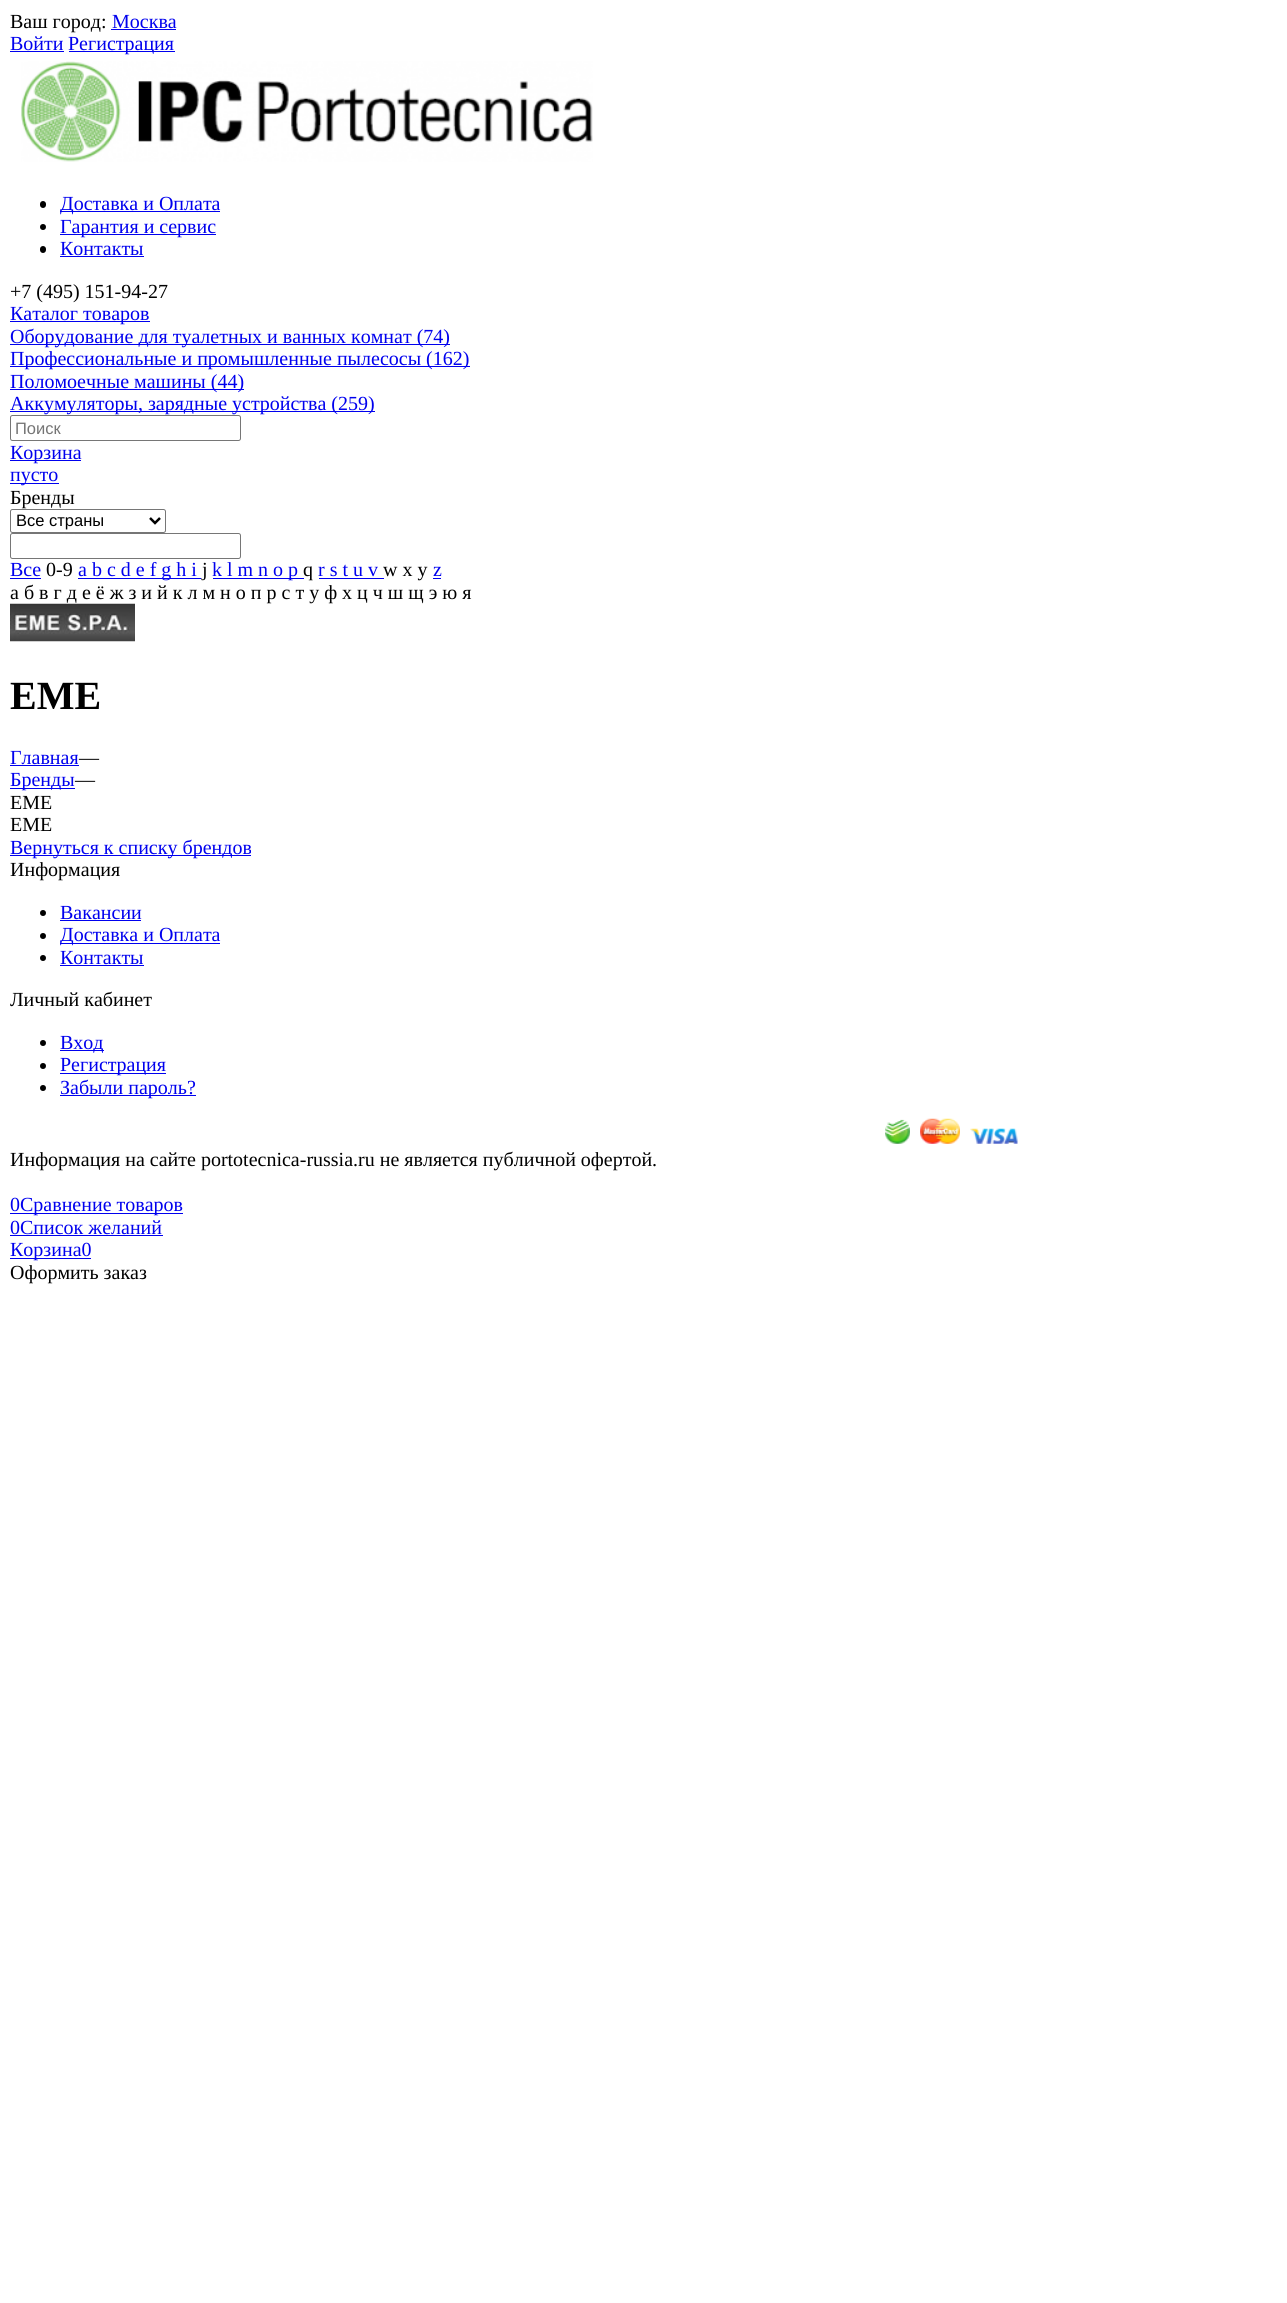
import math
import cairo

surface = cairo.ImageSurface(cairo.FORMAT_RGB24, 1287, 2303)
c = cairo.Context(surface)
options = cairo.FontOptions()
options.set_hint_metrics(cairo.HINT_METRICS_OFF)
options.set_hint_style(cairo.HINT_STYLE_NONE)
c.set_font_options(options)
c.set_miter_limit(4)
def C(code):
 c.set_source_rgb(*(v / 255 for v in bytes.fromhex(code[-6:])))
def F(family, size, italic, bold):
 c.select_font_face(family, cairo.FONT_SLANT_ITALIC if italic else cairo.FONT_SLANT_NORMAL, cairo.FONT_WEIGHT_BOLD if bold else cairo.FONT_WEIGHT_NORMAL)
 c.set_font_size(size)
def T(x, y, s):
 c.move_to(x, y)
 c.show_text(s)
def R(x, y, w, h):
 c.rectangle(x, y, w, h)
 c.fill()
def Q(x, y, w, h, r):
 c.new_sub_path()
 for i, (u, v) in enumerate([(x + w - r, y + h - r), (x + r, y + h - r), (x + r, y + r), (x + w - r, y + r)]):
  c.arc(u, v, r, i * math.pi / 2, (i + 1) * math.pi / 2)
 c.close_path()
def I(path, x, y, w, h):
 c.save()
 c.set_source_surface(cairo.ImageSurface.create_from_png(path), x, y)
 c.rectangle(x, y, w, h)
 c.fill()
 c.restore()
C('ffffff')
c.paint()
F('Liberation Serif',20,0,0)
C('000000')
T(10,28,'Ваш город:')
C('0000ee')
T(112,28,'Москва')
R(111,29,65,1)
T(10,50,'Войти')
R(10,51,54,1)
R(69,51,106,1)
T(68,50,'Регистрация')
I('1.png',21,61,572,101)
C('000000')
Q(40,201,6,7,3)
c.fill()
C('0000ee')
R(60,211,160,1)
T(60,210,'Доставка и Оплата')
C('000000')
c.new_path()
c.arc(43,227,3,0,2 * math.pi)
c.fill()
C('0000ee')
R(60,234,156,1)
T(60,233,'Гарантия и сервис')
C('000000')
Q(40,246,6,7,3)
c.fill()
C('0000ee')
T(60,255,'Контакты')
R(60,256,84,1)
C('000000')
T(10,298,'+7 (495) 151-94-27')
C('0000ee')
R(10,321,140,1)
T(10,320,'Каталог товаров')
R(10,344,440,1)
T(10,343,'Оборудование для туалетных и ванных комнат (74)')
R(10,366,460,1)
T(10,365,'Профессиональные и промышленные пылесосы (162)')
R(10,389,234,1)
T(10,388,'Поломоечные машины (44)')
R(10,411,365,1)
T(10,410,'Аккумуляторы, зарядные устройства (259)')
Q(10.5,415.5,230,25,2)
C('767676')
c.set_line_width(1)
c.stroke()
F('Liberation Sans',16.5,0,0)
C('757575')
T(15,434,'Поиск')
C('0000ee')
R(10,460,71,1)
F('Liberation Serif',20,0,0)
T(10,459,'Корзина')
R(10,483,49,1)
T(10,481,'пусто')
C('000000')
T(10,504,'Бренды')
Q(10.5,509.5,155,23,2)
C('767676')
c.stroke()
c.new_path()
c.move_to(150,518)
c.line_to(155,523)
c.line_to(160,518)
C('000000')
c.set_line_width(2.5)
c.stroke()
F('Liberation Sans',16.5,0,0)
T(16,526,'Все страны')
Q(10.5,533.5,230,25,2)
C('767676')
c.set_line_width(1)
c.stroke()
F('Liberation Serif',20,0,0)
C('0000ee')
T(10,576,'Все')
R(10,578,31,1)
C('000000')
T(46,576,'0-9')
C('0000ee')
R(78,578,123,1)
T(78,576,'a b c d e f g h i')
C('000000')
T(202,576,'j')
C('0000ee')
R(213,578,91,1)
T(212,576,'k l m n o p')
C('000000')
T(303,576,'q')
C('0000ee')
T(318,576,'r s t u v')
R(319,578,65,1)
C('000000')
T(383,576,'w x y')
C('0000ee')
T(433,576,'z')
R(433,578,8,1)
C('000000')
T(10,599,'а б в г д е ё ж з и й к л м н о п р с т у ф х ц ч ш щ э ю я')
I('2.png',10,603,125,39)
F('Liberation Serif',40,0,1)
T(10,709,'EME')
F('Liberation Serif',20,0,0)
C('0000ee')
T(10,764,'Главная')
R(10,765,69,1)
C('000000')
T(79,764,'—')
C('0000ee')
R(10,788,65,1)
T(10,786,'Бренды')
C('000000')
T(75,786,'—')
T(10,809,'EME')
T(10,831,'EME')
C('0000ee')
R(10,855,241,1)
T(10,854,'Вернуться к списку брендов')
C('000000')
T(10,876,'Информация')
c.new_path()
c.arc(43,913,3,0,2 * math.pi)
c.fill()
C('0000ee')
T(60,919,'Вакансии')
R(60,920,81,1)
C('000000')
c.new_path()
c.arc(43,936,3,0,2 * math.pi)
c.fill()
C('0000ee')
R(60,943,160,1)
T(60,941,'Доставка и Оплата')
C('000000')
c.new_path()
c.arc(43,958,3,0,2 * math.pi)
c.fill()
C('0000ee')
T(60,964,'Контакты')
R(60,965,84,1)
C('000000')
T(10,1006,'Личный кабинет')
c.new_path()
c.arc(43,1043,3,0,2 * math.pi)
c.fill()
C('0000ee')
R(60,1050,44,1)
T(60,1049,'Вход')
C('000000')
c.new_path()
c.arc(43,1066,3,0,2 * math.pi)
c.fill()
C('0000ee')
R(60,1073,106,1)
T(60,1071,'Регистрация')
C('000000')
c.new_path()
c.arc(43,1088,3,0,2 * math.pi)
c.fill()
C('0000ee')
R(60,1095,136,1)
T(60,1094,'Забыли пароль?')
I('3.png',885,1119,25,25)
I('4.png',920,1118,40,26)
I('5.png',970,1128,48,16)
C('000000')
T(10,1166,'Информация на сайте portotecnica-russia.ru не является публичной офертой.')
C('0000ee')
R(10,1213,173,1)
T(10,1211,'0Сравнение товаров')
T(10,1234,'0Список желаний')
R(10,1235,153,1)
R(10,1258,71,1)
T(10,1256,'Корзина0')
R(81,1258,10,1)
C('000000')
T(10,1279,'Оформить заказ')
surface.write_to_png('o.png')
